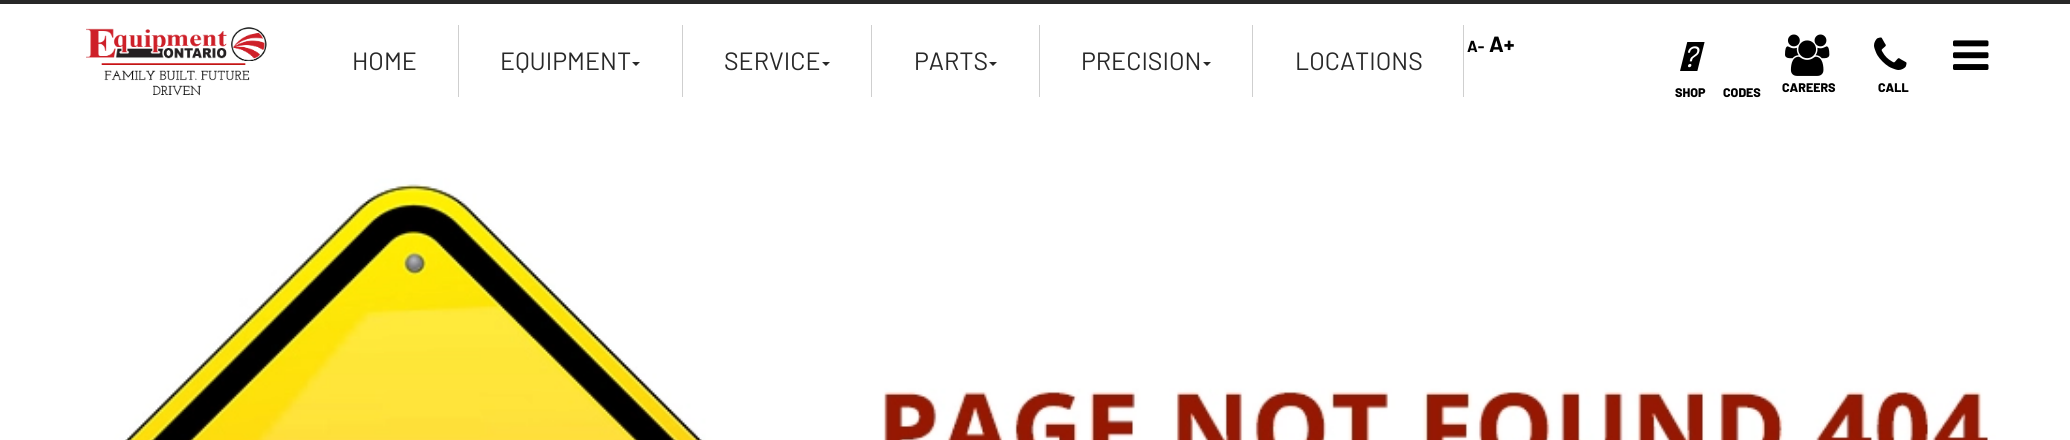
import math
import cairo

surface = cairo.ImageSurface(cairo.FORMAT_RGB24, 2070, 440)
c = cairo.Context(surface)
options = cairo.FontOptions()
options.set_hint_metrics(cairo.HINT_METRICS_OFF)
options.set_hint_style(cairo.HINT_STYLE_NONE)
c.set_font_options(options)
c.set_miter_limit(4)
def C(code):
 c.set_source_rgb(*(v / 255 for v in bytes.fromhex(code[-6:])))
def F(family, size, italic, bold):
 c.select_font_face(family, cairo.FONT_SLANT_ITALIC if italic else cairo.FONT_SLANT_NORMAL, cairo.FONT_WEIGHT_BOLD if bold else cairo.FONT_WEIGHT_NORMAL)
 c.set_font_size(size)
def T(x, y, s):
 c.move_to(x, y)
 c.show_text(s)
def R(x, y, w, h):
 c.rectangle(x, y, w, h)
 c.fill()
def Q(x, y, w, h, r):
 c.new_sub_path()
 for i, (u, v) in enumerate([(x + w - r, y + h - r), (x + r, y + h - r), (x + r, y + r), (x + w - r, y + r)]):
  c.arc(u, v, r, i * math.pi / 2, (i + 1) * math.pi / 2)
 c.close_path()
def S(x, y, w, h, r, blur, alpha):
 c.push_group_with_content(cairo.CONTENT_ALPHA)
 c.set_operator(cairo.OPERATOR_SOURCE)
 for i in range(15, -16, -2):
  e = blur * i / 6
  if min(w, h) + 2 * e > 0:
   c.set_source_rgba(0, 0, 0, alpha * math.erfc((i - 1) / 8.5) / 2)
   Q(x - e, y - e, w + 2 * e, h + 2 * e, max(0, min(r + e + blur * .6, min(w, h) / 2 + e)))
   c.fill()
 c.mask(c.pop_group())
def I(path, x, y, w, h):
 c.save()
 c.set_source_surface(cairo.ImageSurface.create_from_png(path), x, y)
 c.rectangle(x, y, w, h)
 c.fill()
 c.restore()
C('ffffff')
c.paint()
C('282828')
R(0,0,2070,4)
c.save()
c.rectangle(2,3,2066,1)
c.clip()
C('000000')
S(0,5,2070,115,0,1.5,.15)
c.restore()
F('Barlow',16,0,1)
C('000000')
T(1467,52,'A-')
F('Barlow',22,0,1)
T(1489,52,'A+')
C('cfcfcf')
R(458,25,1,72)
F('Barlow',25,0,0)
C('282828')
T(352,70,'HOME')
C('cfcfcf')
R(682,25,1,72)
C('282828')
T(500,70,'EQUIPMENT')
c.new_path()
c.move_to(632,62)
c.line_to(640,62)
c.line_to(636,66)
c.close_path()
c.fill()
C('cfcfcf')
R(871,25,1,72)
C('282828')
T(724,70,'SERVICE')
c.new_path()
c.move_to(822,62)
c.line_to(830,62)
c.line_to(826,66)
c.close_path()
c.fill()
C('cfcfcf')
R(1039,25,1,72)
C('282828')
T(914,70,'PARTS')
c.new_path()
c.move_to(989,62)
c.line_to(997,62)
c.line_to(993,66)
c.close_path()
c.fill()
C('cfcfcf')
R(1252,25,1,72)
C('282828')
T(1081,70,'PRECISION')
c.new_path()
c.move_to(1203,62)
c.line_to(1211,62)
c.line_to(1207,66)
c.close_path()
c.fill()
C('cfcfcf')
R(1463,25,1,72)
C('282828')
T(1295,70,'LOCATIONS')
I('1.png',86,27,181,69)
I('2.png',1953,40,36,30)
I('3.png',1680,42,25,29)
F('Barlow ExtraBold',12.5,0,0)
C('000000')
T(1675,97,'SHOP')
T(1723,97,'CODES')
I('4.png',1785,34,45,42)
T(1782,92,'CAREERS')
I('5.png',1874,37,33,33)
T(1878,92,'CALL')
I('6.png',0,119,2070,321)
surface.write_to_png('o.png')
